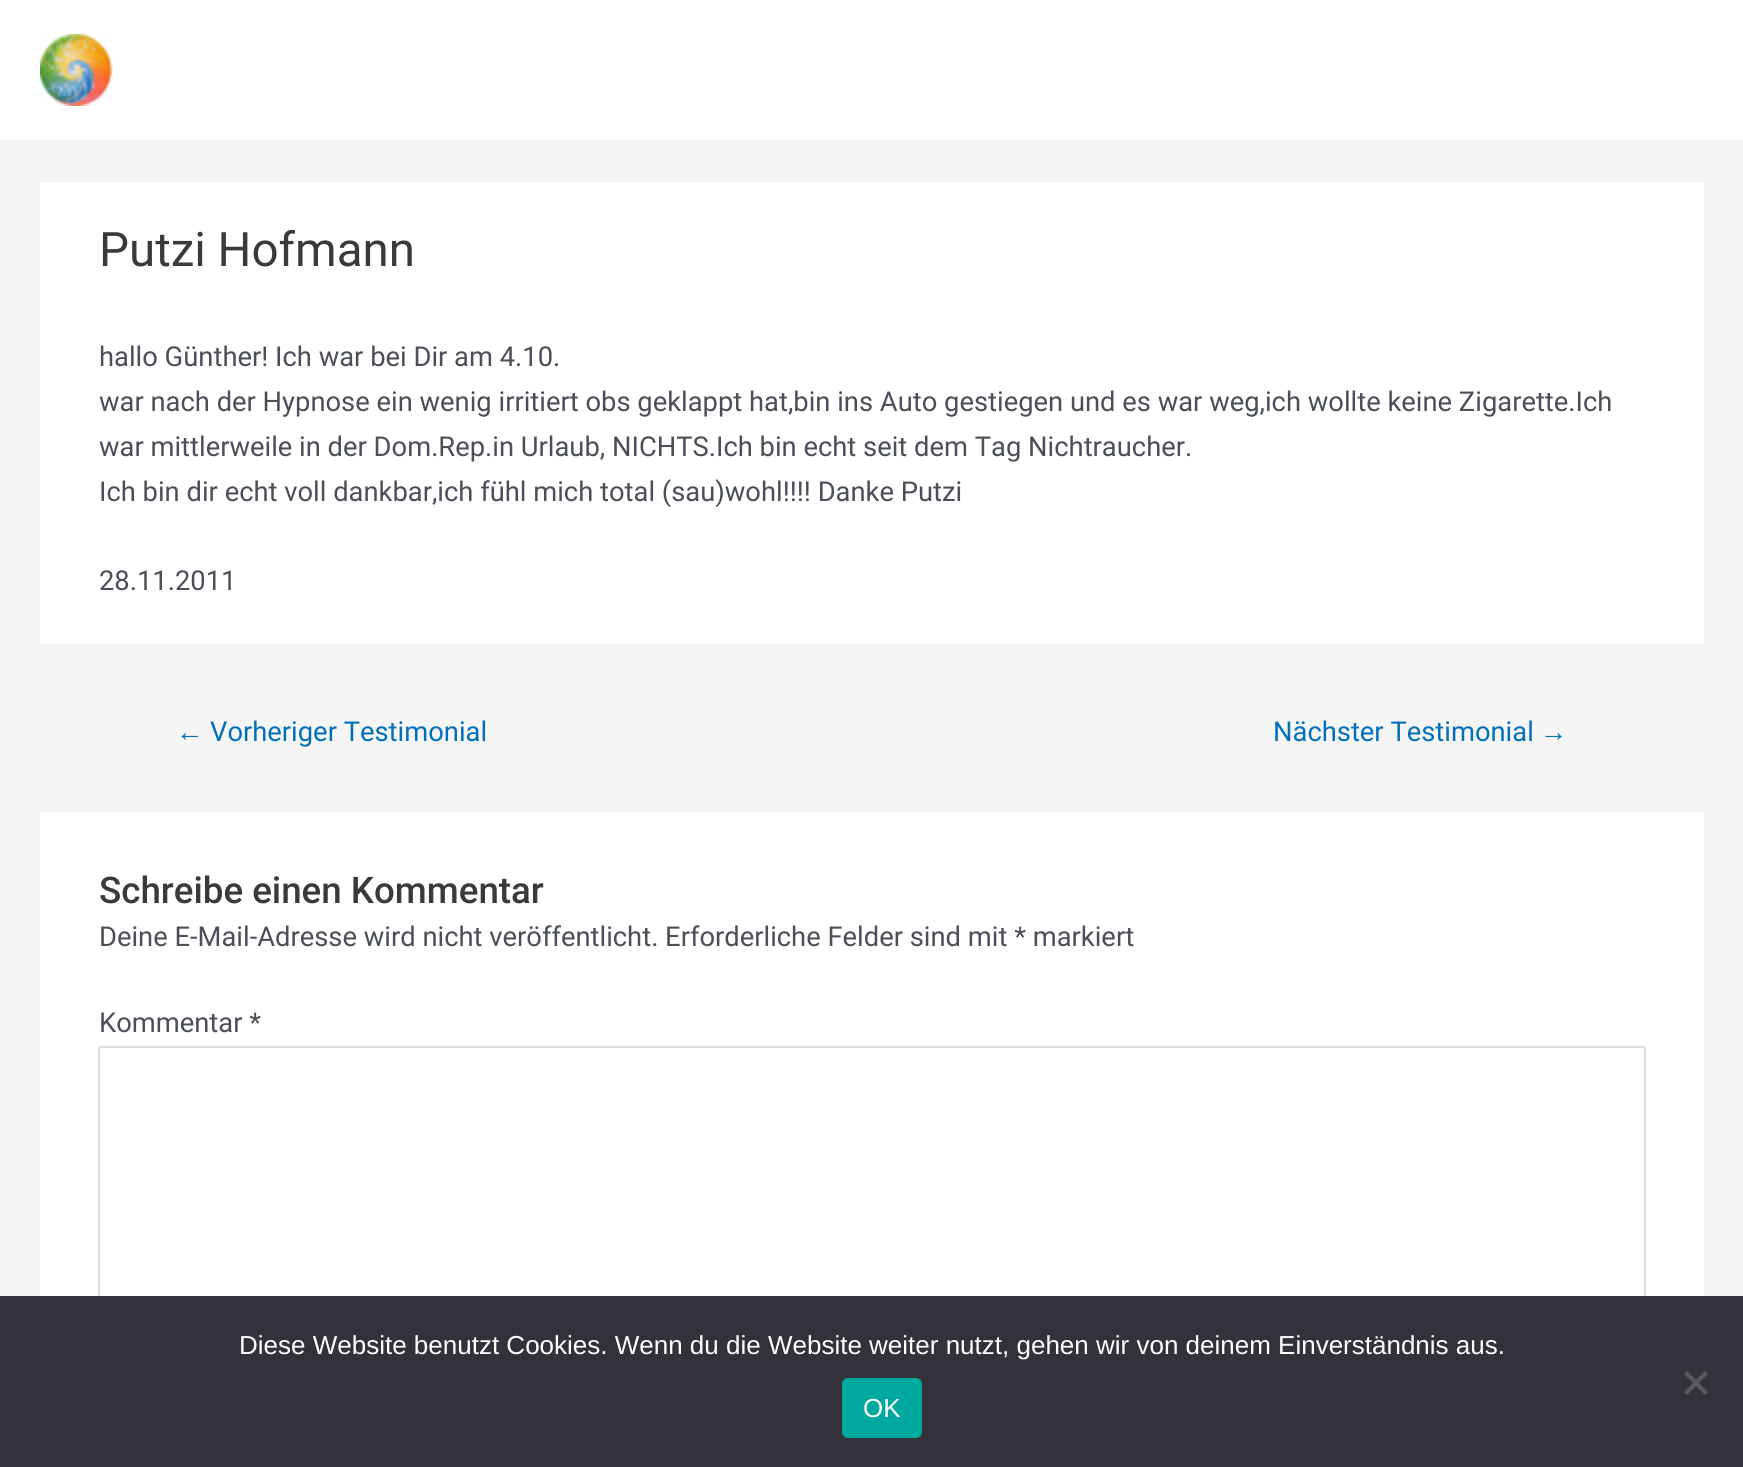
import math
import cairo

surface = cairo.ImageSurface(cairo.FORMAT_RGB24, 1743, 1467)
c = cairo.Context(surface)
options = cairo.FontOptions()
options.set_hint_metrics(cairo.HINT_METRICS_OFF)
options.set_hint_style(cairo.HINT_STYLE_NONE)
c.set_font_options(options)
c.set_miter_limit(4)
def C(code):
 c.set_source_rgb(*(v / 255 for v in bytes.fromhex(code[-6:])))
def F(family, size, italic, bold):
 c.select_font_face(family, cairo.FONT_SLANT_ITALIC if italic else cairo.FONT_SLANT_NORMAL, cairo.FONT_WEIGHT_BOLD if bold else cairo.FONT_WEIGHT_NORMAL)
 c.set_font_size(size)
def T(x, y, s):
 c.move_to(x, y)
 c.show_text(s)
def R(x, y, w, h):
 c.rectangle(x, y, w, h)
 c.fill()
def Q(x, y, w, h, r):
 c.new_sub_path()
 for i, (u, v) in enumerate([(x + w - r, y + h - r), (x + r, y + h - r), (x + r, y + r), (x + w - r, y + r)]):
  c.arc(u, v, r, i * math.pi / 2, (i + 1) * math.pi / 2)
 c.close_path()
def I(path, x, y, w, h):
 c.save()
 c.set_source_surface(cairo.ImageSurface.create_from_png(path), x, y)
 c.rectangle(x, y, w, h)
 c.fill()
 c.restore()
C('f5f5f5')
c.paint()
C('ffffff')
R(0,0,1743,140)
I('1.png',40,34,73,72)
R(40,182,1664,462)
F('Roboto',47.5,0,0)
C('3a3a3a')
T(99,266,'Putzi Hofmann')
F('Roboto',27.35,0,0)
C('4b4f58')
T(99,366,'hallo Günther! Ich war bei Dir am 4.10.')
T(99,411,'war nach der Hypnose ein wenig irritiert obs geklappt hat,bin ins Auto gestiegen und es war weg,ich wollte keine Zigarette.Ich')
T(99,456,'war mittlerweile in der Dom.Rep.in Urlaub, NICHTS.Ich bin echt seit dem Tag Nichtraucher.')
T(99,501,'Ich bin dir echt voll dankbar,ich fühl mich total (sau)wohl!!!! Danke Putzi')
T(99,590,'28.11.2011')
F('Liberation Sans',27.35,0,0)
C('0170b9')
T(176,741,'←')
F('Roboto',27.35,0,0)
T(210,741,'Vorheriger Testimonial')
T(1273,741,'Nächster Testimonial')
F('Liberation Sans',27.35,0,0)
T(1540,741,'→')
C('ffffff')
R(40,812,1664,484)
F('Roboto Medium',36.7,0,0)
C('3a3a3a')
T(99,903,'Schreibe einen Kommentar')
F('Roboto',27.35,0,0)
C('4b4f58')
T(99,946,'Deine E-Mail-Adresse wird nicht veröffentlicht. Erforderliche Felder sind mit * markiert')
T(99,1032,'Kommentar *')
c.rectangle(99,1047,1546,404)
C('dddddd')
c.stroke()
C('32323a')
R(0,1296,1743,171)
F('Liberation Sans',26,0,0)
C('ffffff')
T(239,1354,'Diese Website benutzt Cookies. Wenn du die Website weiter nutzt, gehen wir von deinem Einverständnis aus.')
C('59595d')
c.new_path()
c.move_to(1705,1371)
c.line_to(1708,1374)
c.line_to(1687,1395)
c.line_to(1684,1392)
c.close_path()
c.fill()
c.new_path()
c.move_to(1684,1374)
c.line_to(1687,1371)
c.line_to(1708,1392)
c.line_to(1705,1395)
c.close_path()
c.fill()
C('00a99d')
Q(842,1378,80,60,6)
c.fill()
C('ffffff')
T(863,1417,'OK')
surface.write_to_png('o.png')
